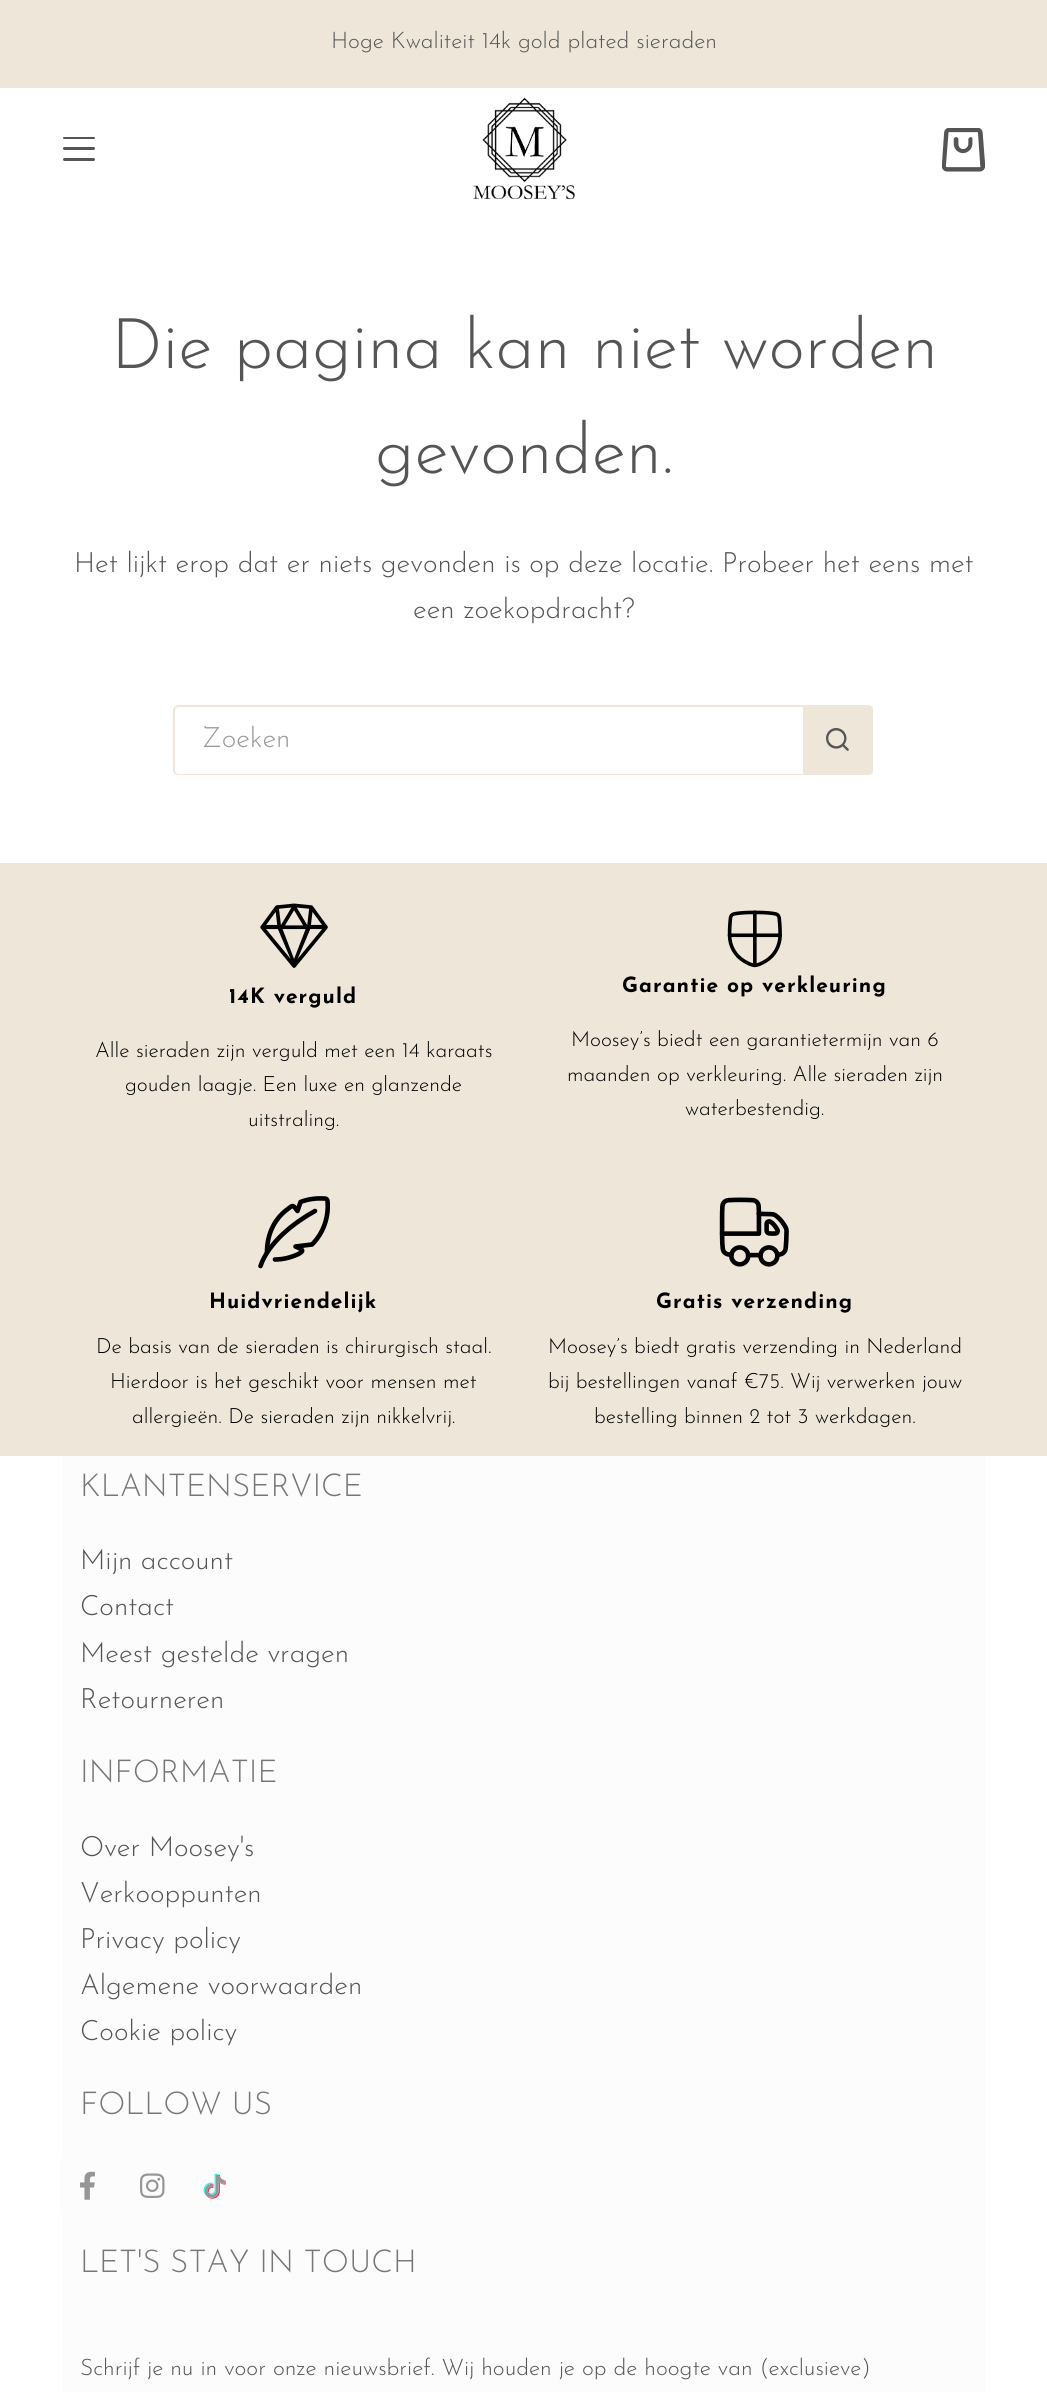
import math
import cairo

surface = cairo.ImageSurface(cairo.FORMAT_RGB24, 1047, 2392)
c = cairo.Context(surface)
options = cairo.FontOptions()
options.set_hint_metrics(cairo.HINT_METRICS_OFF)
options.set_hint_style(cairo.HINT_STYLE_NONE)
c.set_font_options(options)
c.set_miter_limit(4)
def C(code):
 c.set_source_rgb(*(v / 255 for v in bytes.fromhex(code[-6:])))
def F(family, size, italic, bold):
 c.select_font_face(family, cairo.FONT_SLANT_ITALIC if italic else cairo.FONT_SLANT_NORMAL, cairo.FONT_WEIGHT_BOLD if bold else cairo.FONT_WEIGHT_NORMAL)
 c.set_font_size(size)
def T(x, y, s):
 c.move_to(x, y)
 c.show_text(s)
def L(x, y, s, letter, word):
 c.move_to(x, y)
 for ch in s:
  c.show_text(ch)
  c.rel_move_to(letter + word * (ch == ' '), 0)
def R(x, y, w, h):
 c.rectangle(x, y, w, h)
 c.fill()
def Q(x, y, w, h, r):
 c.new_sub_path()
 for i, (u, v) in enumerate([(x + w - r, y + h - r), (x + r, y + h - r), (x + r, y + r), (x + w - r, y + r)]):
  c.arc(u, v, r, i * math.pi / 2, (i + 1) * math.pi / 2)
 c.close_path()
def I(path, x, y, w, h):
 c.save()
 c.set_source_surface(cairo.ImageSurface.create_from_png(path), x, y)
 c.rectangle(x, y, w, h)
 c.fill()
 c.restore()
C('ffffff')
c.paint()
C('ede6d9')
R(0,0,1047,88)
F('Josefin Sans Light',22.75,0,0)
C('555555')
T(331,48,'Hoge Kwaliteit 14k gold plated sieraden')
Q(63,137,32,2,1)
c.fill()
Q(63,147,32,3,1.5)
c.fill()
Q(63,158,32,3,1.5)
c.fill()
I('1.png',473,97,102,103)
I('2.png',942,128,43,44)
F('Josefin Sans Light',70,0,0)
T(111,368,'Die pagina kan niet worden')
T(375,473,'gevonden.')
F('Josefin Sans Light',28,0,0)
T(74,572,'Het lijkt erop dat er niets gevonden is op deze locatie. Probeer het eens met')
T(413,618,'een zoekopdracht?')
C('ede6d9')
c.set_fill_rule(cairo.FILL_RULE_EVEN_ODD)
c.new_path()
c.move_to(178,705)
c.line_to(803,705)
c.line_to(803,775)
c.line_to(178,775)
c.curve_to(176,775,173,773,173,770)
c.line_to(173,710)
c.curve_to(173,708,176,705,178,705)
c.close_path()
c.move_to(178,707)
c.line_to(803,707)
c.line_to(803,774)
c.line_to(178,774)
c.curve_to(177,774,175,772,175,770)
c.line_to(175,710)
c.curve_to(175,709,177,707,178,707)
c.close_path()
c.fill()
C('999999')
T(202,747,'Zoeken')
C('ede6d9')
c.new_path()
c.move_to(803,705)
c.line_to(868,705)
c.curve_to(871,705,873,707,873,710)
c.line_to(873,770)
c.curve_to(873,773,871,775,868,775)
c.line_to(803,775)
c.close_path()
c.fill()
c.new_path()
c.move_to(803,705)
c.line_to(868,705)
c.curve_to(871,705,873,708,873,710)
c.line_to(873,770)
c.curve_to(873,773,871,775,868,775)
c.line_to(803,775)
c.close_path()
c.move_to(803,707)
c.line_to(868,707)
c.curve_to(870,707,872,709,872,710)
c.line_to(872,770)
c.curve_to(872,772,870,774,868,774)
c.line_to(803,774)
c.close_path()
c.fill()
I('3.png',826,728,23,23)
R(0,863,1047,593)
I('4.png',260,903,68,65)
F('Josefin Sans',21,0,1)
C('000000')
L(229,1003,'14K verguld',1.05,0)
F('Josefin Sans Light',21,0,0)
T(95,1057,'Alle sieraden zijn verguld met een 14 karaats')
T(125,1091,'gouden laagje. Een luxe en glanzende')
T(248,1126,'uitstraling.')
I('5.png',727,910,55,58)
F('Josefin Sans',21,0,1)
L(622,992,'Garantie op verkleuring',1.05,0)
F('Josefin Sans Light',21,0,0)
T(571,1046,'Moosey’s biedt een garantietermijn van 6')
T(567,1081,'maanden op verkleuring. Alle sieraden zijn')
T(685,1115,'waterbestendig.')
c.new_path()
c.move_to(275,1259.5)
c.curve_to(283,1259.5,291,1257.5,298.5,1254)
c.curve_to(306,1250,300.5,1249,295.5,1246.5)
c.line_to(312,1244.5)
c.curve_to(323.5,1233,329,1217,327.5,1201)
c.curve_to(327.5,1200,326.5,1198.5,325,1198.5)
c.curve_to(316.5,1198,308,1199,300.5,1202)
c.line_to(297.5,1211)
c.curve_to(292.5,1205,294,1204,286.5,1210)
c.curve_to(273.5,1220,267,1235.5,267,1252)
c.set_line_width(4.6)
c.set_line_cap(cairo.LINE_CAP_ROUND)
c.set_line_join(cairo.LINE_JOIN_ROUND)
c.stroke()
c.new_path()
c.move_to(260.5,1266)
c.curve_to(268.5,1242.5,294,1222.5,315,1211)
c.stroke()
F('Josefin Sans',21,0,1)
L(209,1308,'Huidvriendelijk',1.05,0)
F('Josefin Sans Light',21,0,0)
T(96,1353,'De basis van de sieraden is chirurgisch staal.')
T(110,1388,'Hierdoor is het geschikt voor mensen met')
T(132,1423,'allergieën. De sieraden zijn nikkelvrij.')
I('6.png',719,1197,70,70)
F('Josefin Sans',21,0,1)
L(656,1308,'Gratis verzending',1.05,0)
F('Josefin Sans Light',21,0,0)
T(548,1353,'Moosey’s biedt gratis verzending in Nederland')
T(548,1388,'bij bestellingen vanaf €75. Wij verwerken jouw')
T(594,1423,'bestelling binnen 2 tot 3 werkdagen.')
C('fcfcfc')
R(63,1456,922,936)
F('Josefin Sans Light',31.5,0,0)
C('777777')
T(80,1496,'KLANTENSERVICE')
F('Josefin Sans Light',28,0,0)
C('555555')
T(80,1569,'Mijn account')
T(80,1615,'Contact')
T(80,1662,'Meest gestelde vragen')
T(80,1708,'Retourneren')
F('Josefin Sans Light',31.5,0,0)
C('777777')
T(80,1782,'INFORMATIE')
F('Josefin Sans Light',28,0,0)
C('555555')
T(80,1856,'Over Moosey\'s')
T(80,1902,'Verkooppunten')
T(80,1948,'Privacy policy')
T(80,1994,'Algemene voorwaarden')
T(80,2040,'Cookie policy')
F('Josefin Sans Light',31.5,0,0)
C('777777')
T(80,2114,'FOLLOW US')
C('fcfcfc')
R(60,2158,3,56)
I('7.png',80,2171,15,29)
I('8.png',140,2173,25,25)
I('9.png',203,2173,23,26)
C('777777')
T(80,2272,'LET\'S STAY IN TOUCH')
F('Josefin Sans Light',22.75,0,0)
C('555555')
T(80,2375,'Schrijf je nu in voor onze nieuwsbrief. Wij houden je op de hoogte van (exclusieve)')
surface.write_to_png('o.png')
